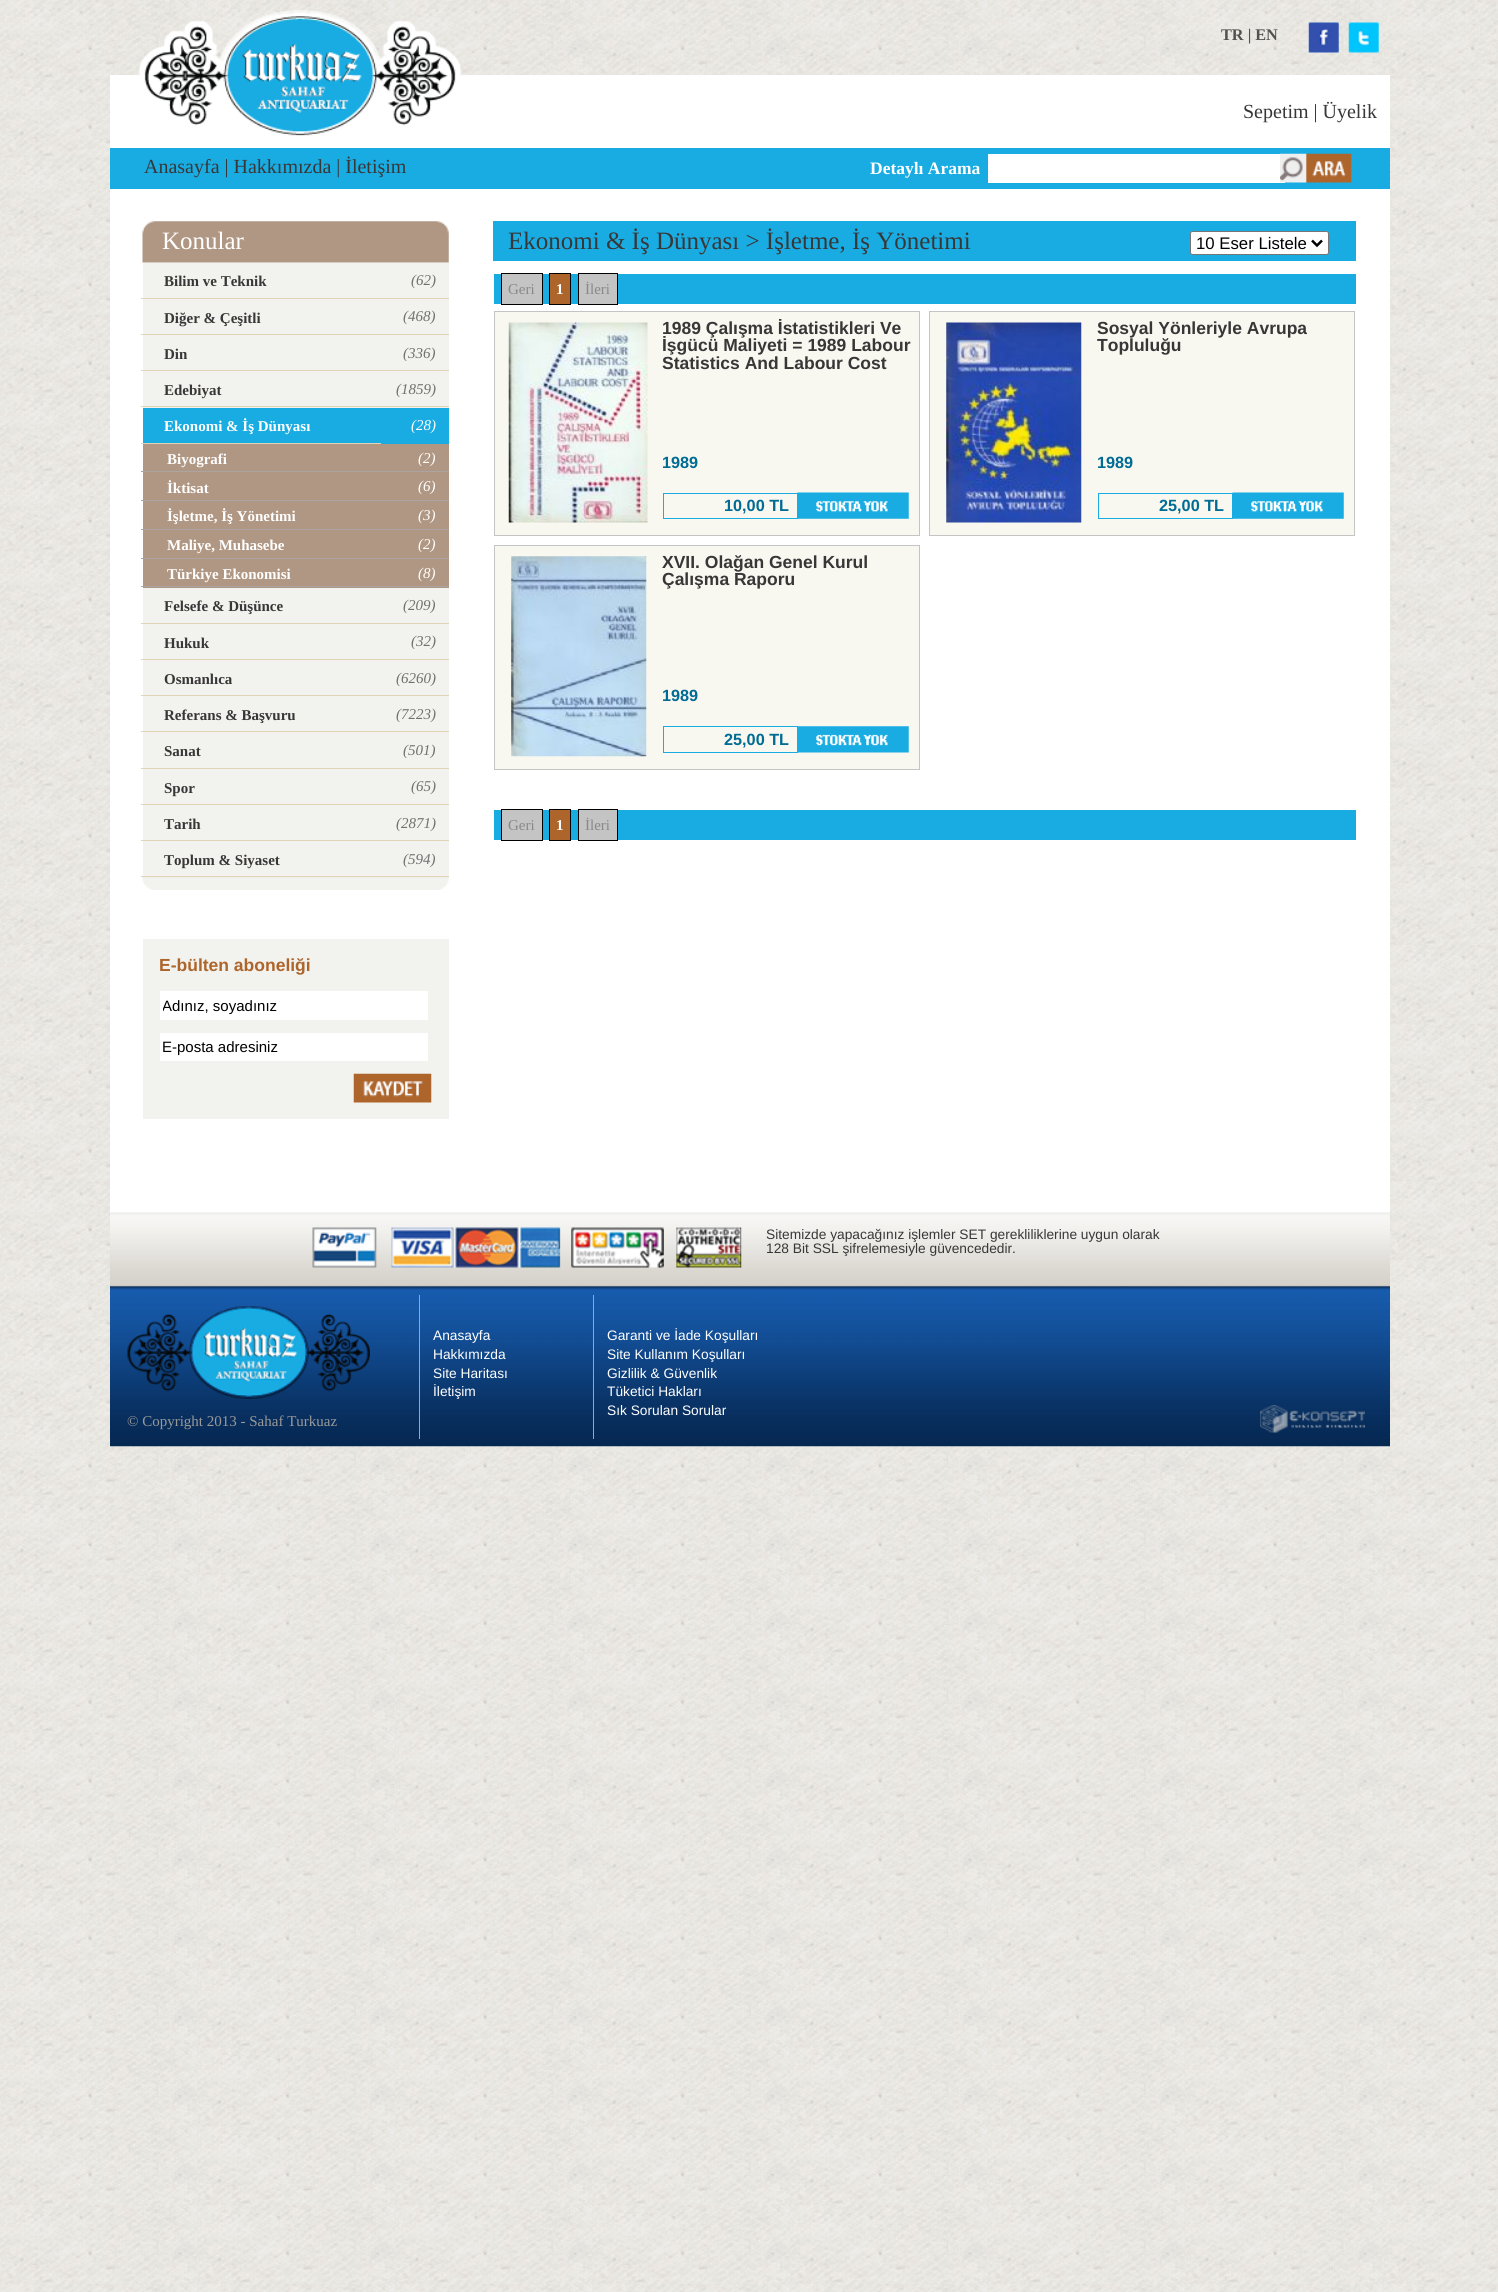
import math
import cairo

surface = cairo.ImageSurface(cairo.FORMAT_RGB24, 1498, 2292)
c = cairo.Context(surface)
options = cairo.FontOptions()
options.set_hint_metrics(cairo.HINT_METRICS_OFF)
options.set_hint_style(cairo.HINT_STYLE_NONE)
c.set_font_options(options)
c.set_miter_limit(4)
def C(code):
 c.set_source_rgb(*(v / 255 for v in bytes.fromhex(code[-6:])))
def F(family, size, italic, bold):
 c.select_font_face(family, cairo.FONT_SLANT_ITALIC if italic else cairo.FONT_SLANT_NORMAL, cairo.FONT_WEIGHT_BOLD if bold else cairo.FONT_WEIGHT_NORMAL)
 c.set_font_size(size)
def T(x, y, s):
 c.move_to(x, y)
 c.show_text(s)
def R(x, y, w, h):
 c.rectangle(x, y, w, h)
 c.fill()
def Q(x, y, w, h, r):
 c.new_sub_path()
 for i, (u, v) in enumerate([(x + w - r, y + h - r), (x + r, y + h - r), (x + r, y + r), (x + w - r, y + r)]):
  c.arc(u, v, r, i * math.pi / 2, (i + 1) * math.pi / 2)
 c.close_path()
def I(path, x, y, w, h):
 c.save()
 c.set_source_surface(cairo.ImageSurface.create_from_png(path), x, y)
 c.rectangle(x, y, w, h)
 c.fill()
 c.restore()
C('ffffff')
c.paint()
I('1.png',0,0,1498,2292)
C('ffffff')
R(110,75,1280,73)
I('2.png',138,10,324,126)
F('Liberation Serif',16.25,0,1)
C('515151')
T(1221,40,'TR | EN')
I('3.png',1308,22,31,31)
I('4.png',1348,22,31,31)
F('Liberation Serif',20,0,0)
C('383737')
T(1243,118,'Sepetim | Üyelik')
C('19ace3')
R(110,148,1280,41)
C('383737')
T(144,173,'Anasayfa | Hakkımızda | İletişim')
F('Liberation Serif',17.5,0,1)
C('ffffff')
T(870,174,'Detaylı Arama')
R(988,154,297,29)
I('5.png',1280,153,72,30)
R(110,189,1280,1024)
I('6.png',142,221,307,42)
F('Liberation Serif',25,0,0)
T(162,249,'Konular')
C('f2f2ee')
R(143,263,306,615)
F('Liberation Serif',15,0,1)
C('383737')
T(164,286,'Bilim ve Teknik')
C('dfd5b6')
R(141,298,308,1)
F('Liberation Serif',15,1,0)
C('707070')
T(411,285,'(62)')
F('Liberation Serif',15,0,1)
C('383737')
T(164,323,'Diğer & Çeşitli')
C('dfd5b6')
R(141,334,308,1)
F('Liberation Serif',15,1,0)
C('707070')
T(403,321,'(468)')
F('Liberation Serif',15,0,1)
C('383737')
T(164,359,'Din')
C('dfd5b6')
R(141,370,308,1)
F('Liberation Serif',15,1,0)
C('707070')
T(403,358,'(336)')
F('Liberation Serif',15,0,1)
C('383737')
T(164,395,'Edebiyat')
C('dfd5b6')
R(141,406,308,1)
F('Liberation Serif',15,1,0)
C('707070')
T(396,394,'(1859)')
C('19ace3')
R(143,408,238,35)
C('dfd5b6')
R(141,443,240,1)
F('Liberation Serif',15,0,1)
C('ffffff')
T(164,431,'Ekonomi & İş Dünyası')
C('19ace3')
R(381,408,68,36)
F('Liberation Serif',15,1,0)
C('ffffff')
T(411,430,'(28)')
C('b09783')
R(143,444,306,56)
F('Liberation Serif',15,0,1)
C('ffffff')
T(167,464,'Biyografi')
C('aca3a3')
R(141,471,308,1)
F('Liberation Serif',15,1,0)
C('ffffff')
T(418,463,'(2)')
F('Liberation Serif',15,0,1)
T(167,493,'İktisat')
C('aca3a3')
R(141,500,308,1)
F('Liberation Serif',15,1,0)
C('ffffff')
T(418,491,'(6)')
C('b09783')
R(143,501,306,28)
F('Liberation Serif',15,0,1)
C('ffffff')
T(167,521,'İşletme, İş Yönetimi')
C('aca3a3')
R(141,529,308,1)
F('Liberation Serif',15,1,0)
C('ffffff')
T(418,520,'(3)')
C('b09783')
R(143,530,306,28)
F('Liberation Serif',15,0,1)
C('ffffff')
T(167,550,'Maliye, Muhasebe')
C('aca3a3')
R(141,558,308,1)
F('Liberation Serif',15,1,0)
C('ffffff')
T(418,549,'(2)')
C('b09783')
R(143,559,306,29)
F('Liberation Serif',15,0,1)
C('ffffff')
T(167,579,'Türkiye Ekonomisi')
C('aca3a3')
R(141,586,308,1)
F('Liberation Serif',15,1,0)
C('ffffff')
T(418,578,'(8)')
F('Liberation Serif',15,0,1)
C('383737')
T(164,611,'Felsefe & Düşünce')
C('dfd5b6')
R(141,623,308,1)
F('Liberation Serif',15,1,0)
C('707070')
T(403,610,'(209)')
F('Liberation Serif',15,0,1)
C('383737')
T(164,648,'Hukuk')
C('dfd5b6')
R(141,659,308,1)
F('Liberation Serif',15,1,0)
C('707070')
T(411,646,'(32)')
F('Liberation Serif',15,0,1)
C('383737')
T(164,684,'Osmanlıca')
C('dfd5b6')
R(141,695,308,1)
F('Liberation Serif',15,1,0)
C('707070')
T(396,683,'(6260)')
F('Liberation Serif',15,0,1)
C('383737')
T(164,720,'Referans & Başvuru')
C('dfd5b6')
R(141,731,308,1)
F('Liberation Serif',15,1,0)
C('707070')
T(396,719,'(7223)')
F('Liberation Serif',15,0,1)
C('383737')
T(164,756,'Sanat')
C('dfd5b6')
R(141,768,308,1)
F('Liberation Serif',15,1,0)
C('707070')
T(403,755,'(501)')
F('Liberation Serif',15,0,1)
C('383737')
T(164,793,'Spor')
C('dfd5b6')
R(141,804,308,1)
F('Liberation Serif',15,1,0)
C('707070')
T(411,791,'(65)')
F('Liberation Serif',15,0,1)
C('383737')
T(164,829,'Tarih')
C('dfd5b6')
R(141,840,308,1)
F('Liberation Serif',15,1,0)
C('707070')
T(396,828,'(2871)')
F('Liberation Serif',15,0,1)
C('383737')
T(164,865,'Toplum & Siyaset')
C('dfd5b6')
R(141,876,308,1)
F('Liberation Serif',15,1,0)
C('707070')
T(403,864,'(594)')
I('7.png',142,877,307,13)
C('f2f2ee')
R(143,939,306,180)
F('Liberation Sans',17.5,0,1)
C('ad652b')
T(159,971,'E-bülten aboneliği')
C('ffffff')
R(160,991,268,29)
c.save()
c.rectangle(163,998,262,17)
c.clip()
F('Liberation Sans',15,0,0)
C('000000')
T(162,1011,'Adınız, soyadınız')
c.restore()
R(160,1033,268,28)
F('Liberation Sans',15,0,0)
C('000000')
T(162,1052,'E-posta adresiniz')
I('8.png',353,1073,79,30)
C('19ace3')
R(493,221,863,40)
F('Liberation Serif',25,0,0)
C('383737')
T(508,249,'Ekonomi & İş Dünyası > İşletme, İş Yönetimi')
C('ffffff')
Q(1190.5,231.5,138,23,2)
c.fill_preserve()
C('767676')
c.set_line_width(1)
c.stroke()
c.new_path()
c.move_to(1312,240.5)
c.line_to(1317,245.5)
c.line_to(1322,240.5)
C('000000')
c.set_line_width(2.5)
c.stroke()
F('Liberation Sans',16.75,0,0)
T(1196,249,'10 Eser Listele')
C('19ace3')
R(494,274,862,30)
C('c4c4c4')
c.rectangle(501.5,273.5,41,31)
c.fill_preserve()
C('000000')
c.set_line_width(1)
c.stroke()
F('Liberation Serif',15,0,0)
C('888888')
T(508,294,'Geri')
C('ad652b')
c.rectangle(549.5,273.5,21,31)
c.fill_preserve()
C('000000')
c.stroke()
F('Liberation Serif',15,0,1)
C('ffffff')
T(556,294,'1')
C('c4c4c4')
c.rectangle(578.5,273.5,39,31)
c.fill_preserve()
C('000000')
c.stroke()
F('Liberation Serif',15,0,0)
C('888888')
T(585,294,'İleri')
C('f8f7f0')
c.rectangle(494.5,311.5,425,224)
c.fill_preserve()
C('c4c4c4')
c.stroke()
I('9.png',508,322,140,201)
F('Liberation Sans',17.5,0,1)
C('383737')
T(662,334,'1989 Çalışma İstatistikleri Ve')
T(662,351,'İşgücü Maliyeti = 1989 Labour')
T(662,369,'Statistics And Labour Cost')
F('Liberation Sans',16.25,0,1)
C('006c94')
T(662,468,'1989')
c.rectangle(663.5,493.5,134,25)
C('19ace3')
c.stroke()
C('006c94')
T(724,511,'10,00 TL')
I('10.png',797,492,112,27)
C('f8f7f0')
c.rectangle(929.5,311.5,425,224)
c.fill_preserve()
C('c4c4c4')
c.stroke()
I('11.png',946,322,136,201)
F('Liberation Sans',17.5,0,1)
C('383737')
T(1097,334,'Sosyal Yönleriyle Avrupa')
T(1097,351,'Topluluğu')
F('Liberation Sans',16.25,0,1)
C('006c94')
T(1097,468,'1989')
c.rectangle(1098.5,493.5,134,25)
C('19ace3')
c.stroke()
C('006c94')
T(1159,511,'25,00 TL')
I('12.png',1232,492,112,27)
C('f8f7f0')
c.rectangle(494.5,545.5,425,224)
c.fill_preserve()
C('c4c4c4')
c.stroke()
I('13.png',511,556,136,201)
F('Liberation Sans',17.5,0,1)
C('383737')
T(662,568,'XVII. Olağan Genel Kurul')
T(662,585,'Çalışma Raporu')
F('Liberation Sans',16.25,0,1)
C('006c94')
T(662,701,'1989')
c.rectangle(663.5,726.5,134,26)
C('19ace3')
c.stroke()
C('006c94')
T(724,745,'25,00 TL')
I('14.png',798,726,111,27)
C('19ace3')
R(494,810,862,30)
C('c4c4c4')
c.rectangle(501.5,809.5,41,31)
c.fill_preserve()
C('000000')
c.stroke()
F('Liberation Serif',15,0,0)
C('888888')
T(508,830,'Geri')
C('ad652b')
c.rectangle(549.5,809.5,21,31)
c.fill_preserve()
C('000000')
c.stroke()
F('Liberation Serif',15,0,1)
C('ffffff')
T(556,830,'1')
C('c4c4c4')
c.rectangle(578.5,809.5,39,31)
c.fill_preserve()
C('000000')
c.stroke()
F('Liberation Serif',15,0,0)
C('888888')
T(585,830,'İleri')
I('15.png',110,1212,1280,75)
I('16.png',312,1227,430,41)
F('Liberation Sans',13.75,0,0)
C('383737')
T(766,1239,'Sitemizde yapacağınız işlemler SET gerekliliklerine uygun olarak')
T(766,1253,'128 Bit SSL şifrelemesiyle güvencededir.')
I('17.png',110,1286,1280,161)
C('92a7c1')
R(419,1295,1,144)
C('ffffff')
T(433,1340,'Anasayfa')
T(433,1359,'Hakkımızda')
T(433,1378,'Site Haritası')
T(433,1396,'İletişim')
C('92a7c1')
R(593,1295,1,144)
C('ffffff')
T(607,1340,'Garanti ve İade Koşulları')
T(607,1359,'Site Kullanım Koşulları')
T(607,1378,'Gizlilik & Güvenlik')
T(607,1396,'Tüketici Hakları')
T(607,1415,'Sık Sorulan Sorular')
I('18.png',127,1306,243,93)
F('Liberation Serif',15,0,0)
C('999999')
T(127,1426,'© Copyright 2013 - Sahaf Turkuaz')
I('19.png',1260,1405,105,28)
surface.write_to_png('o.png')
